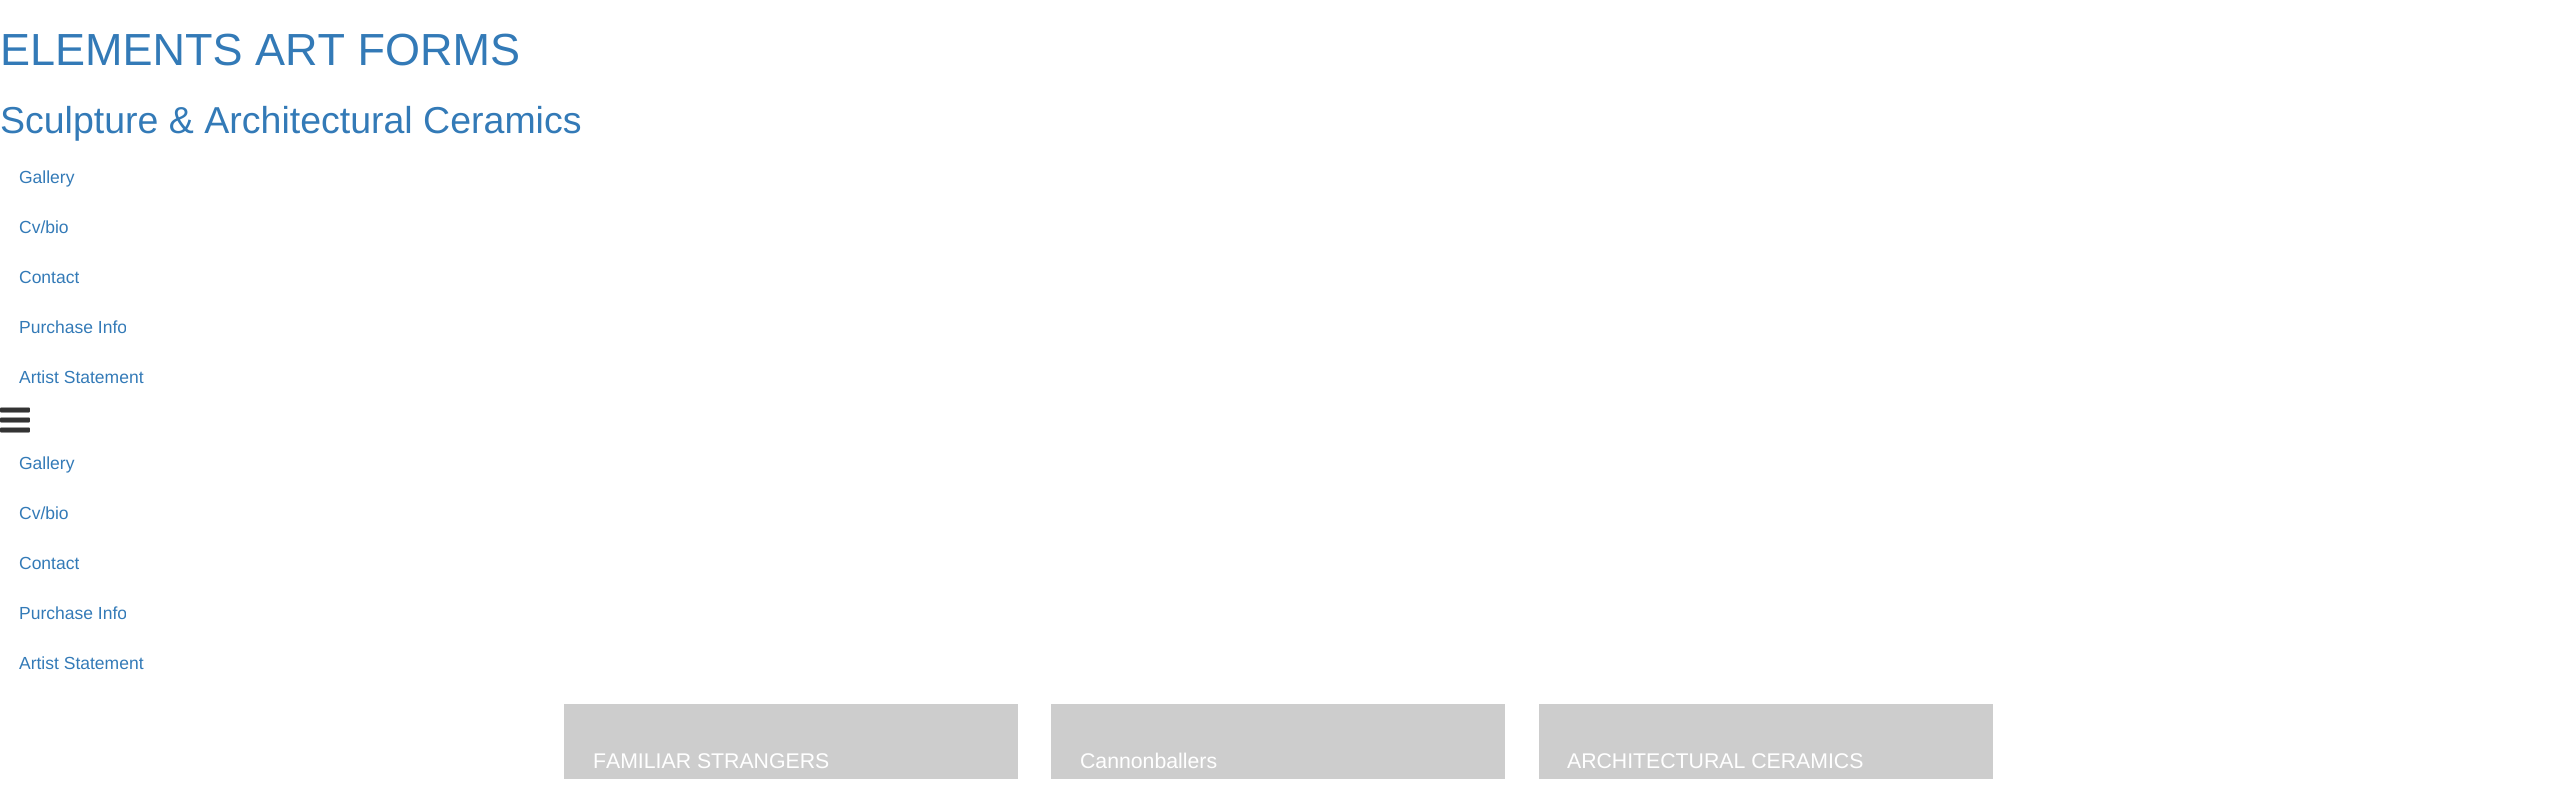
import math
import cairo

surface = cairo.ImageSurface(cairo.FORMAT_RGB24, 2556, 810)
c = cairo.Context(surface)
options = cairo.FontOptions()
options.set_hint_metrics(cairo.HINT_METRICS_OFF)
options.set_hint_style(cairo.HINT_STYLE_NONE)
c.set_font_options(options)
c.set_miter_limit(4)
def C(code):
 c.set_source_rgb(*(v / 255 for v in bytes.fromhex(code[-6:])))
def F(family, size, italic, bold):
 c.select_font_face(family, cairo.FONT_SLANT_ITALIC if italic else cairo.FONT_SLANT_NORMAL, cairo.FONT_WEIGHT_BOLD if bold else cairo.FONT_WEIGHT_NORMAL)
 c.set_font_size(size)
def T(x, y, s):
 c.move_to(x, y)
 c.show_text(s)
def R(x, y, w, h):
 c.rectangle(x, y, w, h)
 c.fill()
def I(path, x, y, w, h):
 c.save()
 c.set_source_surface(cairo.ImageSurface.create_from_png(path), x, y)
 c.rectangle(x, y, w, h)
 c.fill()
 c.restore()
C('ffffff')
c.paint()
F('Liberation Sans',45,0,0)
C('337ab7')
T(0,65,'ELEMENTS ART FORMS')
F('Liberation Sans',37.5,0,0)
T(0,133,'Sculpture & Architectural Ceramics')
F('Liberation Sans',17.5,0,0)
T(19,183,'Gallery')
T(19,233,'Cv/bio')
T(19,283,'Contact')
T(19,333,'Purchase Info')
T(19,383,'Artist Statement')
I('1.png',0,407,30,26)
T(19,469,'Gallery')
T(19,519,'Cv/bio')
T(19,569,'Contact')
T(19,619,'Purchase Info')
T(19,669,'Artist Statement')
C('cdcdcd')
R(564,704,454,75)
F('Liberation Sans',21.25,0,0)
C('ffffff')
T(593,768,'FAMILIAR STRANGERS')
C('cdcdcd')
R(1051,704,454,75)
C('ffffff')
T(1080,768,'Cannonballers')
C('cdcdcd')
R(1539,704,454,75)
C('ffffff')
T(1567,768,'ARCHITECTURAL CERAMICS')
surface.write_to_png('o.png')
